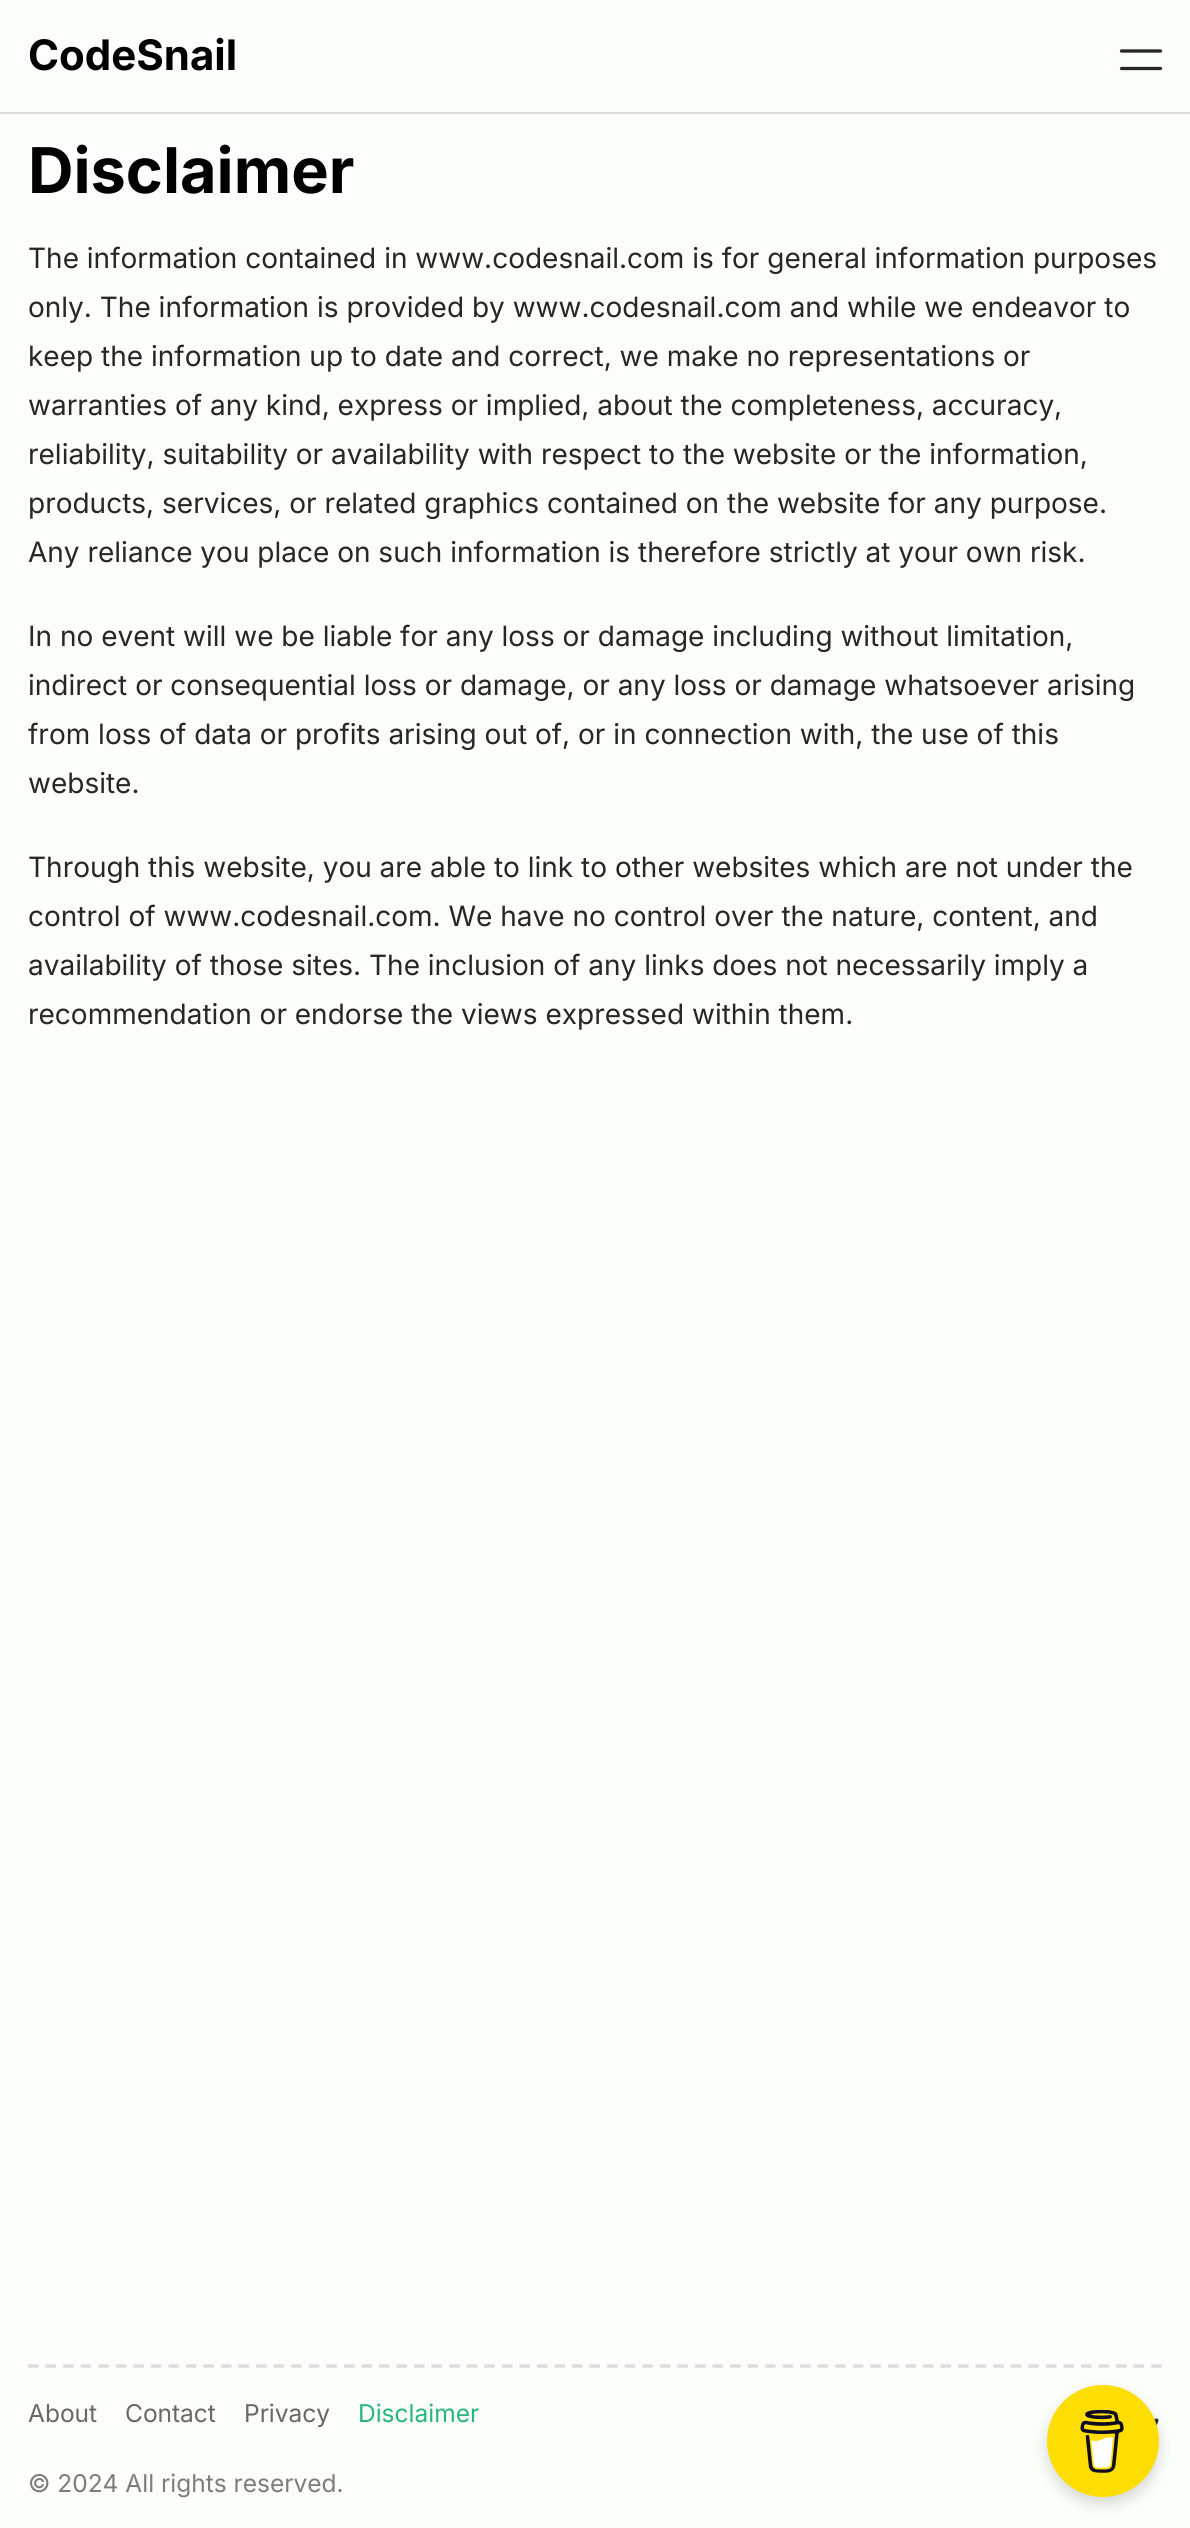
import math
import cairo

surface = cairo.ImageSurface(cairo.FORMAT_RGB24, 1190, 2528)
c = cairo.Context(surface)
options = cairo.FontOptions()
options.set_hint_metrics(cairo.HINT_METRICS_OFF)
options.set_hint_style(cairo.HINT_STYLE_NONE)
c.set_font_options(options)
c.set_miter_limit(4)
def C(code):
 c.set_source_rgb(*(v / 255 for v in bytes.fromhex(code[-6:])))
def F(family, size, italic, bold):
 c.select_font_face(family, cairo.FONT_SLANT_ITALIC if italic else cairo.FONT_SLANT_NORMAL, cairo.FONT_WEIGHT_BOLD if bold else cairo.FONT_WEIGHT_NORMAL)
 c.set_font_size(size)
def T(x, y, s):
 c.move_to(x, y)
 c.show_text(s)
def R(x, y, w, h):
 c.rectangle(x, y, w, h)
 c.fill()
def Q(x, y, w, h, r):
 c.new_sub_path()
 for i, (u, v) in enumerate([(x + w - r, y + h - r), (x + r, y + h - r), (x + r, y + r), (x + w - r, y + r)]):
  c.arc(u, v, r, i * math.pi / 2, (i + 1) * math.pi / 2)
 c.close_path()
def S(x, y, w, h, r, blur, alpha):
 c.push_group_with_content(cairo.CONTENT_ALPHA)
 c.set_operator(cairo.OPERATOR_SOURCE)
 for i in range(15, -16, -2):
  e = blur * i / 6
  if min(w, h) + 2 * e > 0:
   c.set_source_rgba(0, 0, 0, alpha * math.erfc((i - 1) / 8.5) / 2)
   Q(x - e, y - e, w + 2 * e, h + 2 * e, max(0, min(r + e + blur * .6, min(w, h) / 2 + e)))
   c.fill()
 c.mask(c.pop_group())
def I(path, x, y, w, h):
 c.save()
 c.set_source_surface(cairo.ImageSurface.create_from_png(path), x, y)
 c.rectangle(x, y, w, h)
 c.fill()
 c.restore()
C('fbfefb')
c.paint()
C('dddddd')
R(0,112,1190,2)
F('Inter',42,0,1)
C('000000')
T(28,70,'CodeSnail')
c.new_path()
c.move_to(1121.5,68.5)
c.line_to(1160.5,68.5)
c.move_to(1121.5,51)
c.line_to(1160.5,51)
C('282728')
c.set_line_width(3.3)
c.set_line_cap(cairo.LINE_CAP_ROUND)
c.set_line_join(cairo.LINE_JOIN_ROUND)
c.stroke()
F('Inter',63,0,1)
C('000000')
T(28,193,'Disclaimer')
F('Inter',28,0,0)
C('282728')
T(28,268,'The information contained in www.codesnail.com is for general information purposes')
T(28,317,'only. The information is provided by www.codesnail.com and while we endeavor to')
T(28,366,'keep the information up to date and correct, we make no representations or')
T(28,415,'warranties of any kind, express or implied, about the completeness, accuracy,')
T(28,464,'reliability, suitability or availability with respect to the website or the information,')
T(28,513,'products, services, or related graphics contained on the website for any purpose.')
T(28,562,'Any reliance you place on such information is therefore strictly at your own risk.')
T(28,646,'In no event will we be liable for any loss or damage including without limitation,')
T(28,695,'indirect or consequential loss or damage, or any loss or damage whatsoever arising')
T(28,744,'from loss of data or profits arising out of, or in connection with, the use of this')
T(28,793,'website.')
T(28,877,'Through this website, you are able to link to other websites which are not under the')
T(28,926,'control of www.codesnail.com. We have no control over the nature, content, and')
T(28,975,'availability of those sites. The inclusion of any links does not necessarily imply a')
T(28,1024,'recommendation or endorse the views expressed within them.')
c.new_path()
c.move_to(28,2366)
c.line_to(1162,2366)
C('dddddd')
c.set_line_width(3.5)
c.set_line_cap(cairo.LINE_CAP_BUTT)
c.set_line_join(cairo.LINE_JOIN_MITER)
c.set_dash([10.5,7.05])
c.stroke()
F('Inter',24.5,0,0)
C('676867')
T(28,2422,'About')
T(125,2422,'Contact')
T(244,2422,'Privacy')
C('27b67c')
T(358,2422,'Disclaimer')
I('1.png',1154,2418,5,8)
C('7c7d7c')
T(28,2492,'© 2024 All rights reserved.')
C('000000')
S(1047,2392,112,112,56,7,.15)
C('fddd02')
c.arc(1103,2441,56,0,2 * math.pi)
c.fill()
I('2.png',1080,2410,44,63)
surface.write_to_png('o.png')
